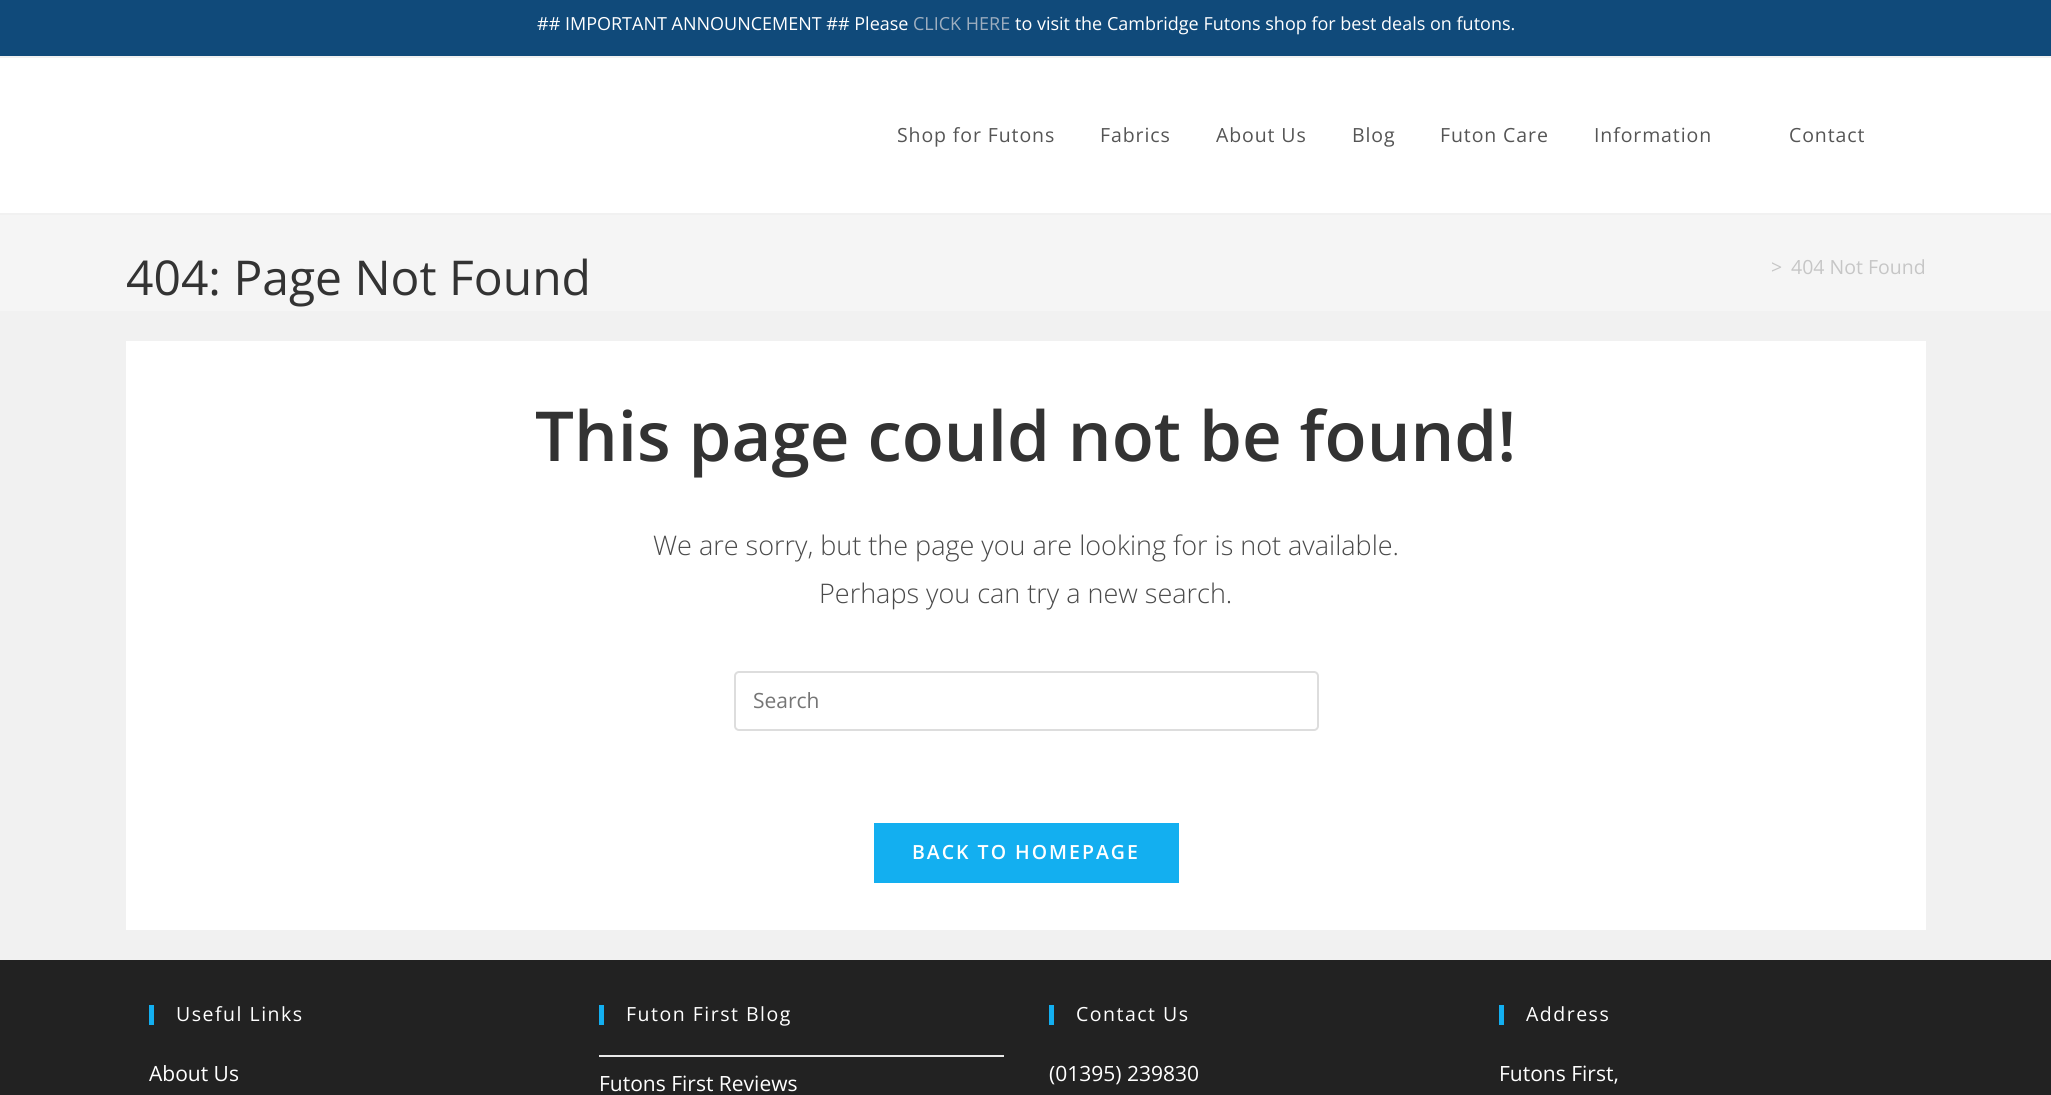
import math
import cairo

surface = cairo.ImageSurface(cairo.FORMAT_RGB24, 2051, 1095)
c = cairo.Context(surface)
options = cairo.FontOptions()
options.set_hint_metrics(cairo.HINT_METRICS_OFF)
options.set_hint_style(cairo.HINT_STYLE_NONE)
c.set_font_options(options)
c.set_miter_limit(4)
def C(code):
 c.set_source_rgb(*(v / 255 for v in bytes.fromhex(code[-6:])))
def F(family, size, italic, bold):
 c.select_font_face(family, cairo.FONT_SLANT_ITALIC if italic else cairo.FONT_SLANT_NORMAL, cairo.FONT_WEIGHT_BOLD if bold else cairo.FONT_WEIGHT_NORMAL)
 c.set_font_size(size)
def T(x, y, s):
 c.move_to(x, y)
 c.show_text(s)
def L(x, y, s, letter, word):
 c.move_to(x, y)
 for ch in s:
  c.show_text(ch)
  c.rel_move_to(letter + word * (ch == ' '), 0)
def R(x, y, w, h):
 c.rectangle(x, y, w, h)
 c.fill()
def Q(x, y, w, h, r):
 c.new_sub_path()
 for i, (u, v) in enumerate([(x + w - r, y + h - r), (x + r, y + h - r), (x + r, y + r), (x + w - r, y + r)]):
  c.arc(u, v, r, i * math.pi / 2, (i + 1) * math.pi / 2)
 c.close_path()
C('f1f1f1')
c.paint()
C('104a7a')
R(0,0,2051,56)
F('Open Sans',18,0,0)
C('ffffff')
T(537,30,'## IMPORTANT ANNOUNCEMENT ## Please')
C('9eaebf')
T(913,30,'CLICK HERE')
C('ffffff')
T(1015,30,'to visit the Cambridge Futons shop for best deals on futons.')
R(0,58,2051,155)
F('Open Sans',19.5,0,0)
C('555555')
L(897,142,'Shop for Futons',.9,0)
L(1100,142,'Fabrics',.9,0)
L(1216,142,'About Us',.9,0)
L(1352,142,'Blog',.9,0)
L(1440,142,'Futon Care',.9,0)
L(1594,142,'Information',.9,0)
L(1789,142,'Contact',.9,0)
C('f5f5f5')
R(0,215,2051,96)
F('Open Sans',48,0,0)
C('333333')
T(126,295,'404: Page Not Found')
F('Open Sans',19.5,0,0)
C('c6c6c6')
T(1771,274,'>')
T(1791,274,'404 Not Found')
C('ffffff')
R(126,341,1800,589)
F('Open Sans SemiBold',69,0,0)
C('333333')
T(535,461,'This page could not be found!')
F('Open Sans Light',27,0,0)
C('4a4a4a')
T(653,555,'We are sorry, but the page you are looking for is not available.')
T(819,603,'Perhaps you can try a new search.')
Q(735,672,583,58,4)
C('dddddd')
c.stroke()
F('Open Sans',21,0,0)
C('757575')
T(753,708,'Search')
C('13aff0')
R(874,823,305,60)
F('Open Sans SemiBold',19.5,0,0)
C('ffffff')
L(912,859,'BACK TO HOMEPAGE',2,0)
C('222222')
R(0,960,2051,135)
C('13aff0')
R(149,1005,5,20)
F('Open Sans',19.5,0,0)
C('ffffff')
L(176,1021,'Useful Links',1.5,0)
F('Open Sans',21,0,0)
T(149,1081,'About Us')
C('13aff0')
R(599,1005,5,20)
F('Open Sans',19.5,0,0)
C('ffffff')
L(626,1021,'Futon First Blog',1.5,0)
C('e9e9e9')
R(599,1055,405,2)
F('Open Sans',21,0,0)
C('ffffff')
T(599,1091,'Futons First Reviews')
C('13aff0')
R(1049,1005,5,20)
F('Open Sans',19.5,0,0)
C('ffffff')
L(1076,1021,'Contact Us',1.5,0)
F('Open Sans',21,0,0)
T(1049,1081,'(01395) 239830')
C('13aff0')
R(1499,1005,5,20)
F('Open Sans',19.5,0,0)
C('ffffff')
L(1526,1021,'Address',1.5,0)
F('Open Sans',21,0,0)
T(1499,1081,'Futons First,')
surface.write_to_png('o.png')
